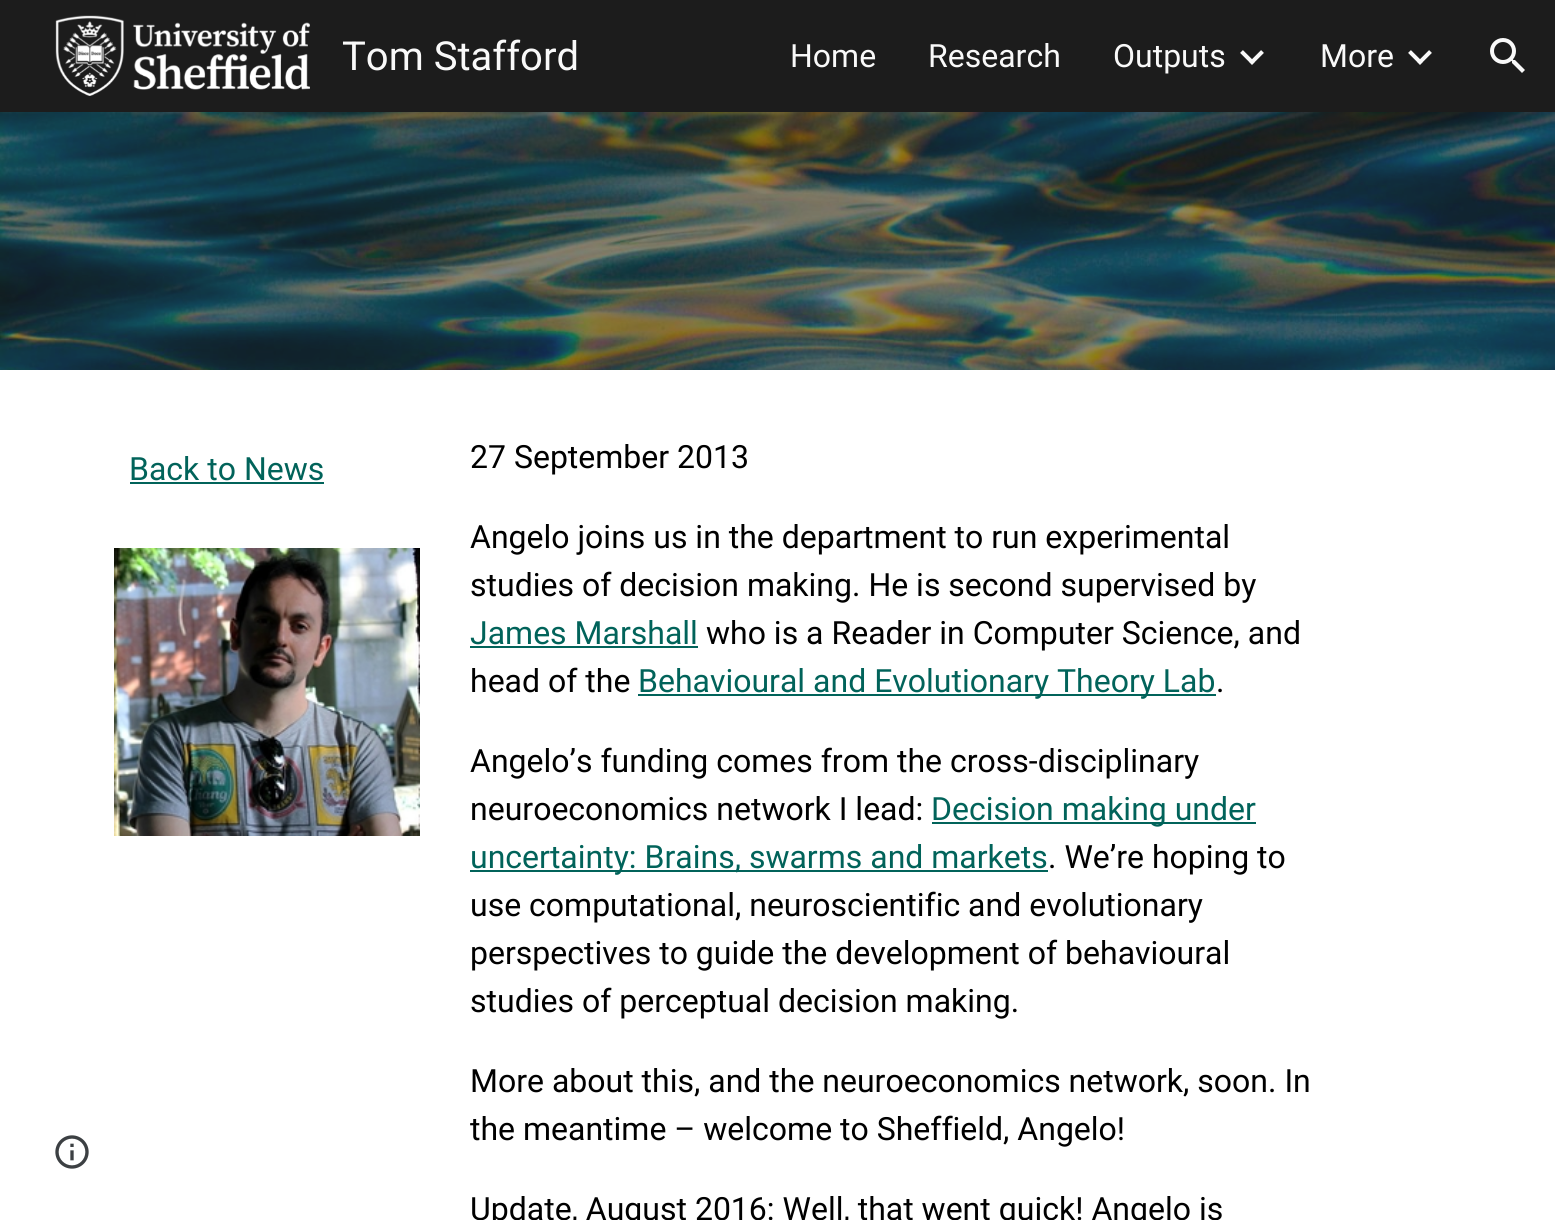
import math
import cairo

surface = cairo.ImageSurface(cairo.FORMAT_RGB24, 1555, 1220)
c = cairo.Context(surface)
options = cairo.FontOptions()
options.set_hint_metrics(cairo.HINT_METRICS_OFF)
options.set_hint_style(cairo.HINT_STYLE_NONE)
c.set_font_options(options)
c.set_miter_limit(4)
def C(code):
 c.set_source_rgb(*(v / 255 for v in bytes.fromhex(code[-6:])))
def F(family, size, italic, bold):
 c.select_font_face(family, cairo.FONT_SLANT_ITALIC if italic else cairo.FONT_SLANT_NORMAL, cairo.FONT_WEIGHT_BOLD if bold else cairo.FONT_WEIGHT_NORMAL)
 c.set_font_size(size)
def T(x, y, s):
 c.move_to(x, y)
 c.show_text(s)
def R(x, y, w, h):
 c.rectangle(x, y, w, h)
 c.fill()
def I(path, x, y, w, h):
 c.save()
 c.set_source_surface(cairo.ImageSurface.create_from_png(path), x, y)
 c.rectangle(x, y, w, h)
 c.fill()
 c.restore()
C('ffffff')
c.paint()
C('1c1c1c')
R(0,0,1555,112)
I('1.png',55,15,255,81)
F('Roboto',40,0,0)
C('f9f9f9')
T(342,70,'Tom Stafford')
F('Roboto',32,0,0)
T(790,67,'Home')
T(928,67,'Research')
T(1113,67,'Outputs')
c.new_path()
c.move_to(1241.5,51.5)
c.line_to(1253.5,63.5)
c.move_to(1250.5,63.5)
c.line_to(1262.5,51.5)
c.set_line_width(4)
c.stroke()
T(1320,67,'More')
c.new_path()
c.move_to(1409.5,51.5)
c.line_to(1421.5,63.5)
c.move_to(1418.5,63.5)
c.line_to(1430.5,51.5)
c.stroke()
I('2.png',1490,38,35,35)
I('3.png',55,1135,34,34)
I('4.png',0,112,1555,258)
C('01635a')
T(129,480,'Back to News')
R(130,482,194,2)
I('5.png',114,548,306,288)
C('000000')
T(470,468,'27 September 2013')
T(470,548,'Angelo joins us in the department to run experimental')
T(470,596,'studies of decision making. He is second supervised by')
C('01635a')
T(470,644,'James Marshall')
R(470,646,228,2)
C('000000')
T(706,644,'who is a Reader in Computer Science, and')
T(470,692,'head of the')
C('01635a')
R(638,694,578,2)
T(638,692,'Behavioural and Evolutionary Theory Lab')
C('000000')
T(1216,692,'.')
T(470,772,'Angelo’s funding comes from the cross-disciplinary')
T(470,820,'neuroeconomics network I lead:')
C('01635a')
R(932,822,324,2)
T(931,820,'Decision making under')
R(470,870,578,2)
T(470,868,'uncertainty: Brains, swarms and markets')
C('000000')
T(1048,868,'. We’re hoping to')
T(470,916,'use computational, neuroscientific and evolutionary')
T(470,964,'perspectives to guide the development of behavioural')
T(470,1012,'studies of perceptual decision making.')
T(470,1092,'More about this, and the neuroeconomics network, soon. In')
T(470,1140,'the meantime – welcome to Sheffield, Angelo!')
T(470,1220,'Update, August 2016: Well, that went quick! Angelo is')
surface.write_to_png('o.png')
